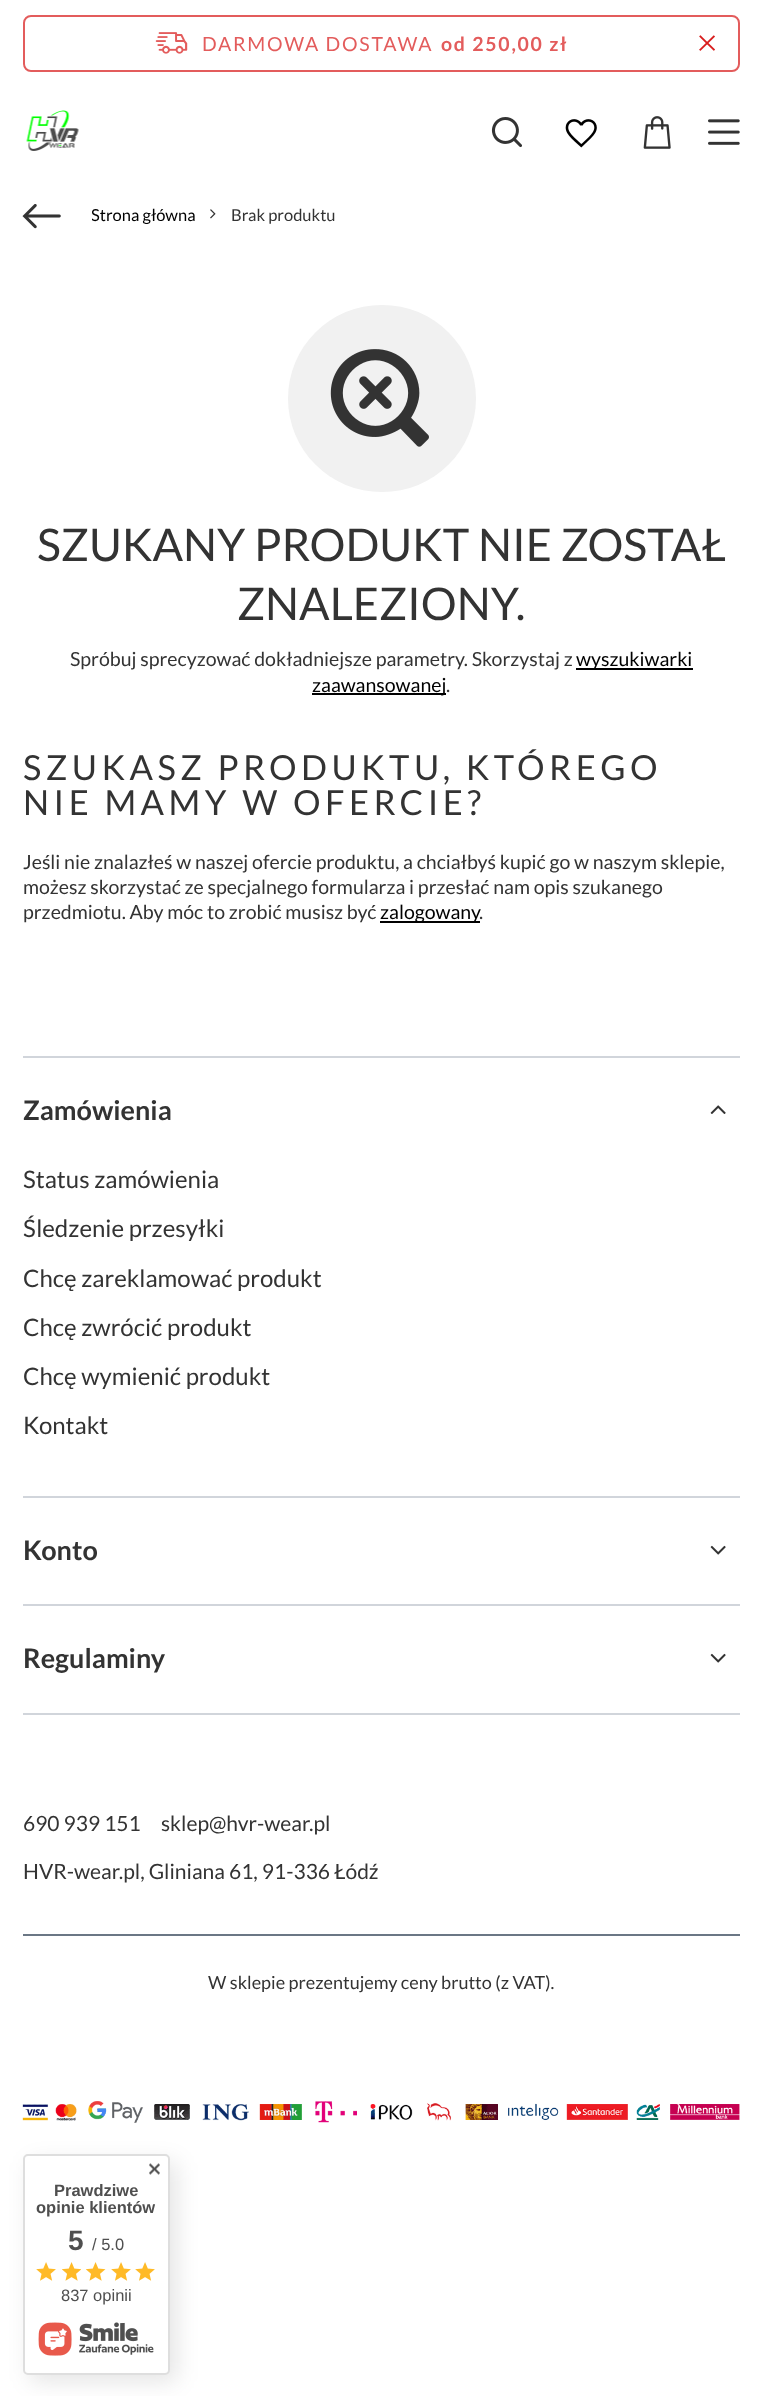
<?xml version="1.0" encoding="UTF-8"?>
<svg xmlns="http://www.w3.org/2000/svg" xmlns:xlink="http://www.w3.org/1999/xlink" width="761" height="2396">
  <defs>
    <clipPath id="clip1"><rect x="92" y="192" width="244" height="45" rx="8" /></clipPath>
  </defs>
  <rect width="100%" height="100%" fill="#ffffff" />
  <rect x="24" y="16" width="715" height="55" rx="7" fill="none" stroke="#e35c5c" stroke-width="2" />
  <image x="155" y="32" width="33" height="22" xlink:href="image1.png" />
  <image x="699" y="35" width="16" height="16" xlink:href="image2.png" />
  <image x="26" y="110" width="53" height="41" xlink:href="image3.png" />
  <image x="491" y="117" width="31" height="31" xlink:href="image4.png" />
  <image x="565" y="119" width="32" height="29" xlink:href="image5.png" />
  <image x="643" y="116" width="28" height="33" xlink:href="image6.png" />
  <image x="708" y="119" width="32" height="26" xlink:href="image7.png" />
  <image x="22" y="204" width="39" height="25" xlink:href="image8.png" />
  <image x="210" y="209" width="6" height="10" xlink:href="image9.png" />
  <rect x="288" y="305" width="188" height="187" rx="93.5" fill="#f1f1f1" />
  <image x="330" y="349" width="99" height="98" xlink:href="image10.png" />
  <rect x="576" y="668" width="117" height="2" fill="#000000" />
  <rect x="312" y="693" width="134" height="2" fill="#000000" />
  <rect x="380" y="921" width="100" height="2" fill="#000000" />
  <rect x="23" y="1056" width="717" height="2" fill="#d1d5db" />
  <rect x="23" y="1496" width="717" height="2" fill="#d1d5db" />
  <image x="710" y="1105" width="16" height="9" xlink:href="image11.png" />
  <rect x="23" y="1604" width="717" height="2" fill="#d1d5db" />
  <image x="710" y="1545" width="16" height="10" xlink:href="image12.png" />
  <rect x="23" y="1713" width="717" height="2" fill="#d1d5db" />
  <image x="710" y="1653" width="16" height="10" xlink:href="image12.png" />
  <rect x="23" y="1934" width="717" height="2" fill="#6b7785" />
  <image x="22" y="2101" width="718" height="22" xlink:href="image13.png" />
  <rect x="30" y="2162" width="147" height="220" rx="5" fill="#000000" fill-opacity="0.1" filter="blur(11px)" />
  <rect x="24" y="2155" width="145" height="219" rx="4" fill="#ffffff" stroke="#dedede" stroke-width="2" />
  <image x="149" y="2163" width="11" height="12" xlink:href="image14.png" />
  <image x="36" y="2262" width="20" height="19" xlink:href="image15.png" />
  <image x="62" y="2262" width="19" height="19" xlink:href="image16.png" />
  <image x="86" y="2262" width="20" height="19" xlink:href="image17.png" />
  <image x="111" y="2262" width="20" height="19" xlink:href="image15.png" />
  <image x="135" y="2262" width="20" height="19" xlink:href="image15.png" />
  <image x="38" y="2322" width="116" height="34" xlink:href="image18.png" />
  <text x="202" y="51" style="font-family: Lato; font-size: 19.5px; letter-spacing: 1.75px; fill: #e35c5c">DARMOWA DOSTAWA</text>
  <text x="441" y="51" style="font-family: Lato; font-size: 19.5px; font-weight: bold; letter-spacing: 1.75px; fill: #e35c5c">od 250,00 zł</text>
  <g clip-path="url(#clip1)">
    <text x="91" y="221" style="font-family: Lato; font-size: 16.5px; fill: #000000">Strona główna</text>
  </g>
  <text x="231" y="221" style="font-family: Lato; font-size: 16.5px; fill: #333333">Brak produktu</text>
  <text x="37" y="561" style="font-family: Lato; font-size: 45px; fill: #333333">SZUKANY PRODUKT NIE ZOSTAŁ</text>
  <text x="237" y="620" style="font-family: Lato; font-size: 45px; fill: #333333">ZNALEZIONY.</text>
  <text x="70" y="666" style="font-family: Lato; font-size: 19.5px; fill: #333333">Spróbuj sprecyzować dokładniejsze parametry. Skorzystaj z</text>
  <text x="576" y="666" style="font-family: Lato; font-size: 19.5px; fill: #000000">wyszukiwarki</text>
  <text x="312" y="692" style="font-family: Lato; font-size: 19.5px; fill: #000000">zaawansowanej</text>
  <text x="446" y="692" style="font-family: Lato; font-size: 19.5px; fill: #333333">.</text>
  <text x="23" y="780" style="font-family: Lato; font-size: 34.5px; letter-spacing: 4.5px; fill: #333333">SZUKASZ PRODUKTU, KTÓREGO</text>
  <text x="23" y="815" style="font-family: Lato; font-size: 34.5px; letter-spacing: 4.5px; fill: #333333">NIE MAMY W OFERCIE?</text>
  <text x="23" y="869" style="font-family: Lato; font-size: 19.5px; fill: #333333">Jeśli nie znalazłeś w naszej ofercie produktu, a chciałbyś kupić go w naszym sklepie,</text>
  <text x="23" y="894" style="font-family: Lato; font-size: 19.5px; fill: #333333">możesz skorzystać ze specjalnego formularza i przesłać nam opis szukanego</text>
  <text x="23" y="919" style="font-family: Lato; font-size: 19.5px; fill: #333333">przedmiotu. Aby móc to zrobić musisz być</text>
  <text x="380" y="919" style="font-family: Lato; font-size: 19.5px; fill: #000000">zalogowany</text>
  <text x="479" y="919" style="font-family: Lato; font-size: 19.5px; fill: #333333">.</text>
  <text x="23" y="1120" style="font-family: Lato; font-size: 27px; font-weight: bold; fill: #333333">Zamówienia</text>
  <text x="23" y="1188" style="font-family: Lato; font-size: 24px; fill: #333333">Status zamówienia</text>
  <text x="23" y="1237" style="font-family: Lato; font-size: 24px; fill: #333333">Śledzenie przesyłki</text>
  <text x="23" y="1287" style="font-family: Lato; font-size: 24px; fill: #333333">Chcę zareklamować produkt</text>
  <text x="23" y="1336" style="font-family: Lato; font-size: 24px; fill: #333333">Chcę zwrócić produkt</text>
  <text x="23" y="1385" style="font-family: Lato; font-size: 24px; fill: #333333">Chcę wymienić produkt</text>
  <text x="23" y="1434" style="font-family: Lato; font-size: 24px; fill: #333333">Kontakt</text>
  <text x="23" y="1560" style="font-family: Lato; font-size: 27px; font-weight: bold; fill: #333333">Konto</text>
  <text x="23" y="1668" style="font-family: Lato; font-size: 27px; font-weight: bold; fill: #333333">Regulaminy</text>
  <text x="23" y="1831" style="font-family: Lato; font-size: 21px; fill: #333333">690 939 151</text>
  <text x="161" y="1831" style="font-family: Lato; font-size: 21px; fill: #333333">sklep@hvr-wear.pl</text>
  <text x="23" y="1879" style="font-family: Lato; font-size: 21px; fill: #333333">HVR-wear.pl, Gliniana 61, 91-336 Łódź</text>
  <text x="208" y="1989" style="font-family: Lato; font-size: 18px; fill: #333333">W sklepie prezentujemy ceny brutto (z VAT).</text>
  <text x="54" y="2196" style="font-family: Liberation Sans; font-size: 16.5px; font-weight: bold; fill: #4f4f4f">Prawdziwe</text>
  <text x="36" y="2213" style="font-family: Liberation Sans; font-size: 16.5px; font-weight: bold; fill: #4f4f4f">opinie klientów</text>
  <text x="68" y="2250" style="font-family: Liberation Sans; font-size: 28px; font-weight: bold; fill: #4f4f4f">5</text>
  <text x="92" y="2250" style="font-family: Liberation Sans; font-size: 16.5px; fill: #4f4f4f">/ 5.0</text>
  <text x="61" y="2301" style="font-family: Liberation Sans; font-size: 16.5px; fill: #4f4f4f">837 opinii</text>
</svg>
